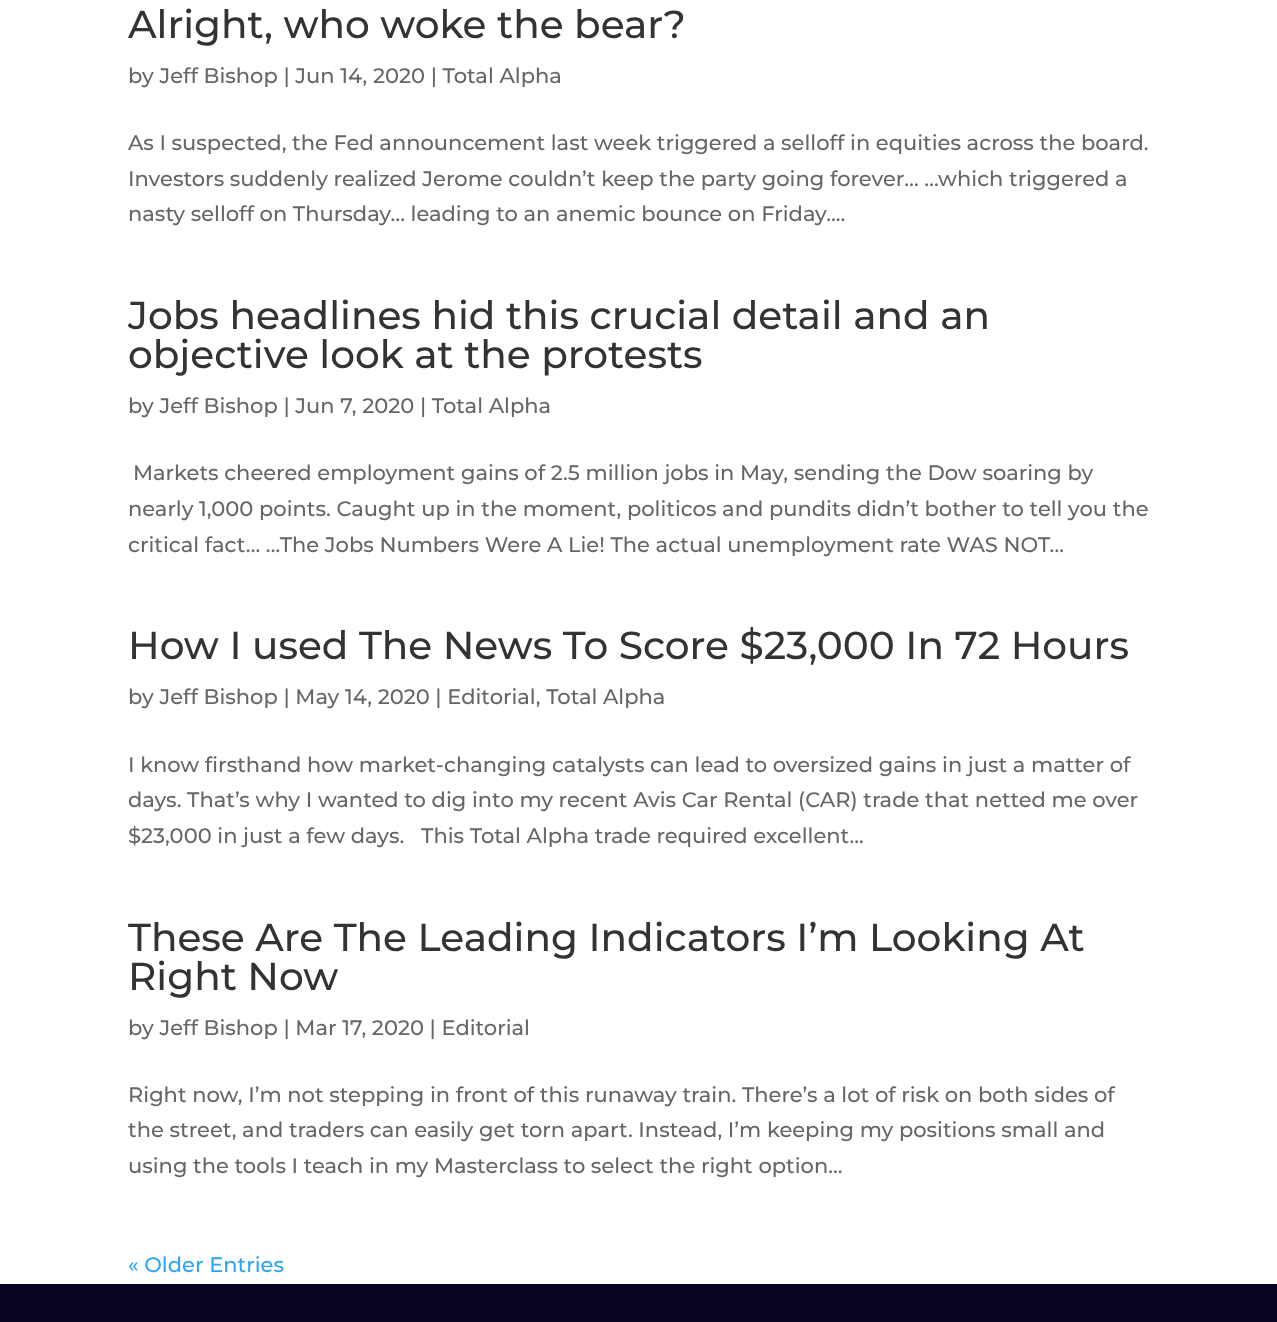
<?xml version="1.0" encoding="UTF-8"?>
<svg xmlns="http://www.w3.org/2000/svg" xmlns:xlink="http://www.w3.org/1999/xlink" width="1277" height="1322">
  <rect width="100%" height="100%" fill="#ffffff" />
  <rect y="1284" width="1277" height="38" fill="#070320" />
  <text x="128" y="38" style="font-family: Montserrat; font-size: 39px; font-weight: 500; fill: #333333">Alright, who woke the bear?</text>
  <text x="128" y="83" style="font-family: Montserrat; font-size: 21px; font-weight: 500; fill: #666666">by Jeff Bishop | Jun 14, 2020 | Total Alpha</text>
  <text x="128" y="150" style="font-family: Montserrat; font-size: 21px; font-weight: 500; fill: #666666">As I suspected, the Fed announcement last week triggered a selloff in equities across the board.</text>
  <text x="128" y="186" style="font-family: Montserrat; font-size: 21px; font-weight: 500; fill: #666666">Investors suddenly realized Jerome couldn’t keep the party going forever… …which triggered a</text>
  <text x="128" y="221" style="font-family: Montserrat; font-size: 21px; font-weight: 500; fill: #666666">nasty selloff on Thursday… leading to an anemic bounce on Friday....</text>
  <text x="128" y="329" style="font-family: Montserrat; font-size: 39px; font-weight: 500; fill: #333333">Jobs headlines hid this crucial detail and an</text>
  <text x="128" y="368" style="font-family: Montserrat; font-size: 39px; font-weight: 500; fill: #333333">objective look at the protests</text>
  <text x="128" y="413" style="font-family: Montserrat; font-size: 21px; font-weight: 500; fill: #666666">by Jeff Bishop | Jun 7, 2020 | Total Alpha</text>
  <text x="133" y="480" style="font-family: Montserrat; font-size: 21px; font-weight: 500; fill: #666666">Markets cheered employment gains of 2.5 million jobs in May, sending the Dow soaring by</text>
  <text x="128" y="516" style="font-family: Montserrat; font-size: 21px; font-weight: 500; fill: #666666">nearly 1,000 points. Caught up in the moment, politicos and pundits didn’t bother to tell you the</text>
  <text x="128" y="552" style="font-family: Montserrat; font-size: 21px; font-weight: 500; fill: #666666">critical fact… …The Jobs Numbers Were A Lie! The actual unemployment rate WAS NOT...</text>
  <text x="128" y="659" style="font-family: Montserrat; font-size: 39px; font-weight: 500; fill: #333333">How I used The News To Score $23,000 In 72 Hours</text>
  <text x="128" y="704" style="font-family: Montserrat; font-size: 21px; font-weight: 500; fill: #666666">by Jeff Bishop | May 14, 2020 | Editorial, Total Alpha</text>
  <text x="128" y="772" style="font-family: Montserrat; font-size: 21px; font-weight: 500; fill: #666666">I know firsthand how market-changing catalysts can lead to oversized gains in just a matter of</text>
  <text x="128" y="807" style="font-family: Montserrat; font-size: 21px; font-weight: 500; fill: #666666">days. That’s why I wanted to dig into my recent Avis Car Rental (CAR) trade that netted me over</text>
  <text x="128" y="843" style="font-family: Montserrat; font-size: 21px; font-weight: 500; fill: #666666" xml:space="preserve">$23,000 in just a few days.   This Total Alpha trade required excellent...</text>
  <text x="128" y="951" style="font-family: Montserrat; font-size: 39px; font-weight: 500; fill: #333333">These Are The Leading Indicators I’m Looking At</text>
  <text x="128" y="990" style="font-family: Montserrat; font-size: 39px; font-weight: 500; fill: #333333">Right Now</text>
  <text x="128" y="1035" style="font-family: Montserrat; font-size: 21px; font-weight: 500; fill: #666666">by Jeff Bishop | Mar 17, 2020 | Editorial</text>
  <text x="128" y="1102" style="font-family: Montserrat; font-size: 21px; font-weight: 500; fill: #666666">Right now, I’m not stepping in front of this runaway train. There’s a lot of risk on both sides of</text>
  <text x="128" y="1137" style="font-family: Montserrat; font-size: 21px; font-weight: 500; fill: #666666">the street, and traders can easily get torn apart. Instead, I’m keeping my positions small and</text>
  <text x="128" y="1173" style="font-family: Montserrat; font-size: 21px; font-weight: 500; fill: #666666">using the tools I teach in my Masterclass to select the right option...</text>
  <text x="128" y="1272" style="font-family: Montserrat; font-size: 21px; font-weight: 500; fill: #2ea3f2">« Older Entries</text>
</svg>
